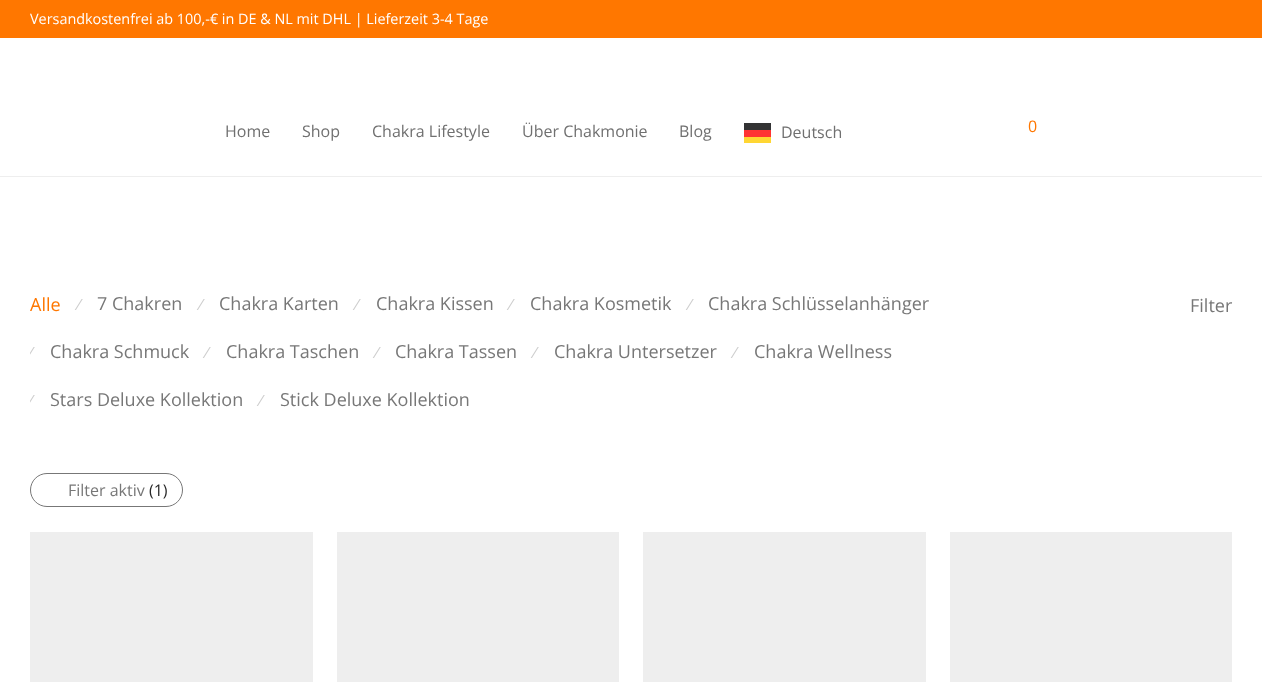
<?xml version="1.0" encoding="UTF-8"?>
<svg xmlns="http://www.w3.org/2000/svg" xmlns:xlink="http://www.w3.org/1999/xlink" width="1262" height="682">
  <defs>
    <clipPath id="clip1"><rect x="30" y="288" width="962" height="129" /></clipPath>
  </defs>
  <rect width="100%" height="100%" fill="#ffffff" />
  <rect width="1262" height="38" fill="#ff7700" />
  <rect y="176" width="1262" height="1" fill="#eeeeee" />
  <rect x="744" y="137" width="27" height="6" fill="#ffd633" />
  <rect x="744" y="123" width="27" height="7" fill="#333334" />
  <rect x="744" y="130" width="27" height="7" fill="#ff3333" />
  <rect x="30.5" y="473.5" width="152" height="33" rx="16.5" fill="none" stroke="#777777" />
  <rect x="30" y="532" width="283" height="150" fill="#eeeeee" />
  <rect x="337" y="532" width="282" height="150" fill="#eeeeee" />
  <rect x="643" y="532" width="283" height="150" fill="#eeeeee" />
  <rect x="950" y="532" width="282" height="150" fill="#eeeeee" />
  <text x="30" y="24" style="font-family: Open Sans; font-size: 14.4px; fill: #ffffff">Versandkostenfrei ab 100,-€ in DE &amp; NL mit DHL | Lieferzeit 3-4 Tage</text>
  <text x="225" y="137" style="font-family: Open Sans; font-size: 16px; fill: #707070">Home</text>
  <text x="302" y="137" style="font-family: Open Sans; font-size: 16px; fill: #707070">Shop</text>
  <text x="372" y="137" style="font-family: Open Sans; font-size: 16px; fill: #707070">Chakra Lifestyle</text>
  <text x="522" y="137" style="font-family: Open Sans; font-size: 16px; fill: #707070">Über Chakmonie</text>
  <text x="679" y="137" style="font-family: Open Sans; font-size: 16px; fill: #707070">Blog</text>
  <text x="781" y="138" style="font-family: Open Sans; font-size: 16px; fill: #707070">Deutsch</text>
  <text x="1028" y="132" style="font-family: Open Sans; font-size: 16px; fill: #ff7700">0</text>
  <text x="30" y="311" style="font-family: Open Sans; font-size: 18px; fill: #ff7700">Alle</text>
  <text x="78" y="310" style="font-family: Liberation Sans; font-size: 16px; fill: #cccccc">⁄</text>
  <text x="97" y="310" style="font-family: Open Sans; font-size: 18px; fill: #777777">7 Chakren</text>
  <text x="200" y="310" style="font-family: Liberation Sans; font-size: 16px; fill: #cccccc">⁄</text>
  <text x="219" y="310" style="font-family: Open Sans; font-size: 18px; fill: #777777">Chakra Karten</text>
  <text x="356" y="310" style="font-family: Liberation Sans; font-size: 16px; fill: #cccccc">⁄</text>
  <text x="376" y="310" style="font-family: Open Sans; font-size: 18px; fill: #777777">Chakra Kissen</text>
  <text x="510" y="310" style="font-family: Liberation Sans; font-size: 16px; fill: #cccccc">⁄</text>
  <text x="530" y="310" style="font-family: Open Sans; font-size: 18px; fill: #777777">Chakra Kosmetik</text>
  <text x="689" y="310" style="font-family: Liberation Sans; font-size: 16px; fill: #cccccc">⁄</text>
  <text x="708" y="310" style="font-family: Open Sans; font-size: 18px; fill: #777777">Chakra Schlüsselanhänger</text>
  <g clip-path="url(#clip1)">
    <text x="30" y="358" style="font-family: Liberation Sans; font-size: 16px; fill: #cccccc">⁄</text>
  </g>
  <text x="50" y="358" style="font-family: Open Sans; font-size: 18px; fill: #777777">Chakra Schmuck</text>
  <text x="206" y="358" style="font-family: Liberation Sans; font-size: 16px; fill: #cccccc">⁄</text>
  <text x="226" y="358" style="font-family: Open Sans; font-size: 18px; fill: #777777">Chakra Taschen</text>
  <text x="376" y="358" style="font-family: Liberation Sans; font-size: 16px; fill: #cccccc">⁄</text>
  <text x="395" y="358" style="font-family: Open Sans; font-size: 18px; fill: #777777">Chakra Tassen</text>
  <text x="534" y="358" style="font-family: Liberation Sans; font-size: 16px; fill: #cccccc">⁄</text>
  <text x="554" y="358" style="font-family: Open Sans; font-size: 18px; fill: #777777">Chakra Untersetzer</text>
  <text x="734" y="358" style="font-family: Liberation Sans; font-size: 16px; fill: #cccccc">⁄</text>
  <text x="754" y="358" style="font-family: Open Sans; font-size: 18px; fill: #777777">Chakra Wellness</text>
  <g clip-path="url(#clip1)">
    <text x="30" y="406" style="font-family: Liberation Sans; font-size: 16px; fill: #cccccc">⁄</text>
  </g>
  <text x="50" y="406" style="font-family: Open Sans; font-size: 18px; fill: #777777">Stars Deluxe Kollektion</text>
  <text x="260" y="406" style="font-family: Liberation Sans; font-size: 16px; fill: #cccccc">⁄</text>
  <text x="280" y="406" style="font-family: Open Sans; font-size: 18px; fill: #777777">Stick Deluxe Kollektion</text>
  <text x="1190" y="312" style="font-family: Open Sans; font-size: 18px; fill: #777777">Filter</text>
  <text x="68" y="496" style="font-family: Open Sans; font-size: 16px; fill: #777777">Filter aktiv</text>
  <text x="149" y="496" style="font-family: Open Sans; font-size: 16px; fill: #282828">(1)</text>
</svg>
